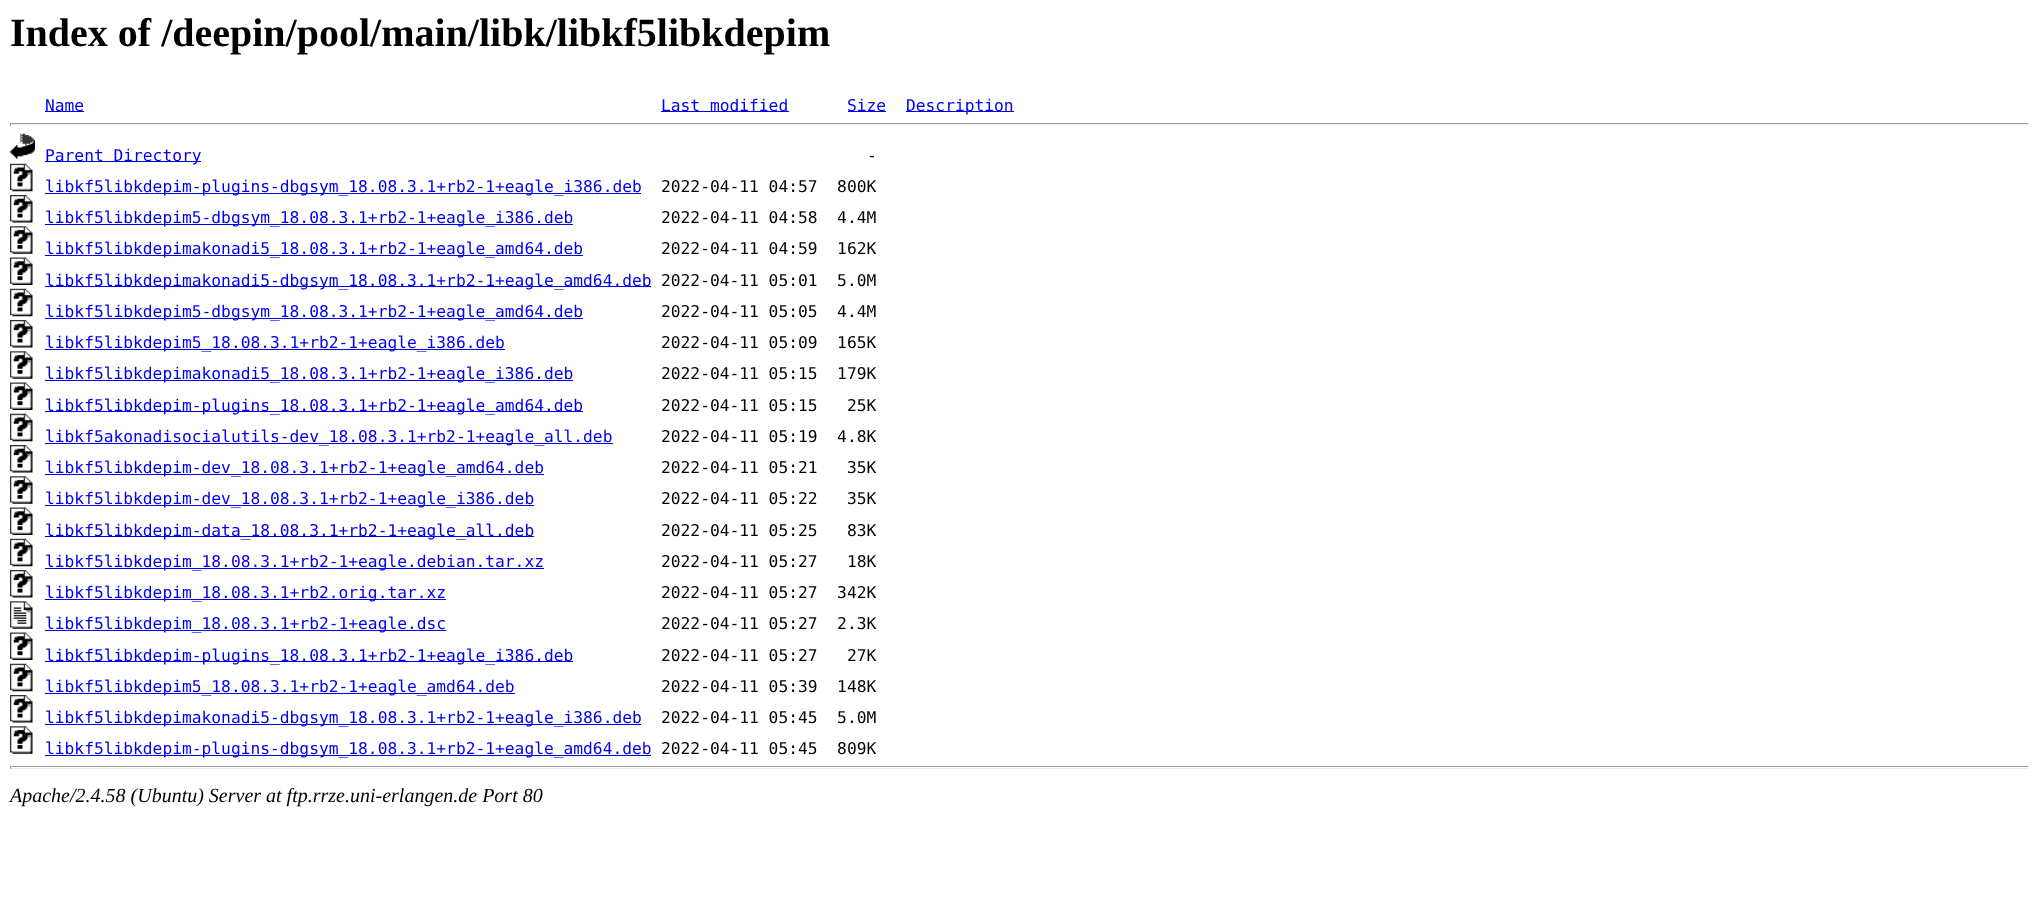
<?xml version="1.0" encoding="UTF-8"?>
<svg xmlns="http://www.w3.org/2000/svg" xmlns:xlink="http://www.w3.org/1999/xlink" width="2038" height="915">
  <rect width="100%" height="100%" fill="#ffffff" />
  <rect x="45" y="111" width="39" height="1" fill="#0000ee" />
  <rect x="661" y="111" width="128" height="1" fill="#0000ee" />
  <rect x="848" y="111" width="38" height="1" fill="#0000ee" />
  <rect x="906" y="111" width="108" height="1" fill="#0000ee" />
  <rect x="10" y="123" width="2019" height="1" fill="#9f9f9f" />
  <rect x="2028" y="123" width="1" height="3" fill="#eeeeee" />
  <rect x="10" y="124" width="2019" height="1" fill="#eeeeee" />
  <rect x="10" y="123" width="1" height="3" fill="#9f9f9f" />
  <image x="10" y="133" width="25" height="26" xlink:href="image1.png" />
  <rect x="45" y="161" width="156" height="1" fill="#0000ee" />
  <image x="10" y="163" width="23" height="29" xlink:href="image2.png" />
  <rect x="45" y="193" width="596" height="1" fill="#0000ee" />
  <image x="10" y="195" width="23" height="28" xlink:href="image3.png" />
  <rect x="45" y="224" width="528" height="1" fill="#0000ee" />
  <image x="10" y="226" width="23" height="28" xlink:href="image4.png" />
  <rect x="45" y="255" width="538" height="1" fill="#0000ee" />
  <image x="10" y="257" width="23" height="28" xlink:href="image5.png" />
  <rect x="45" y="286" width="606" height="1" fill="#0000ee" />
  <image x="10" y="288" width="23" height="29" xlink:href="image6.png" />
  <rect x="45" y="318" width="538" height="1" fill="#0000ee" />
  <image x="10" y="320" width="23" height="28" xlink:href="image3.png" />
  <rect x="45" y="349" width="460" height="1" fill="#0000ee" />
  <image x="10" y="351" width="23" height="28" xlink:href="image4.png" />
  <rect x="45" y="380" width="528" height="1" fill="#0000ee" />
  <image x="10" y="382" width="23" height="28" xlink:href="image5.png" />
  <rect x="45" y="411" width="538" height="1" fill="#0000ee" />
  <image x="10" y="413" width="23" height="29" xlink:href="image2.png" />
  <rect x="45" y="443" width="568" height="1" fill="#0000ee" />
  <image x="10" y="445" width="23" height="28" xlink:href="image3.png" />
  <rect x="45" y="474" width="499" height="1" fill="#0000ee" />
  <image x="10" y="476" width="23" height="28" xlink:href="image4.png" />
  <rect x="45" y="505" width="489" height="1" fill="#0000ee" />
  <image x="10" y="507" width="23" height="28" xlink:href="image5.png" />
  <rect x="45" y="536" width="489" height="1" fill="#0000ee" />
  <image x="10" y="538" width="23" height="29" xlink:href="image2.png" />
  <rect x="45" y="568" width="499" height="1" fill="#0000ee" />
  <image x="10" y="570" width="23" height="28" xlink:href="image7.png" />
  <rect x="45" y="599" width="401" height="1" fill="#0000ee" />
  <image x="10" y="601" width="23" height="28" xlink:href="image8.png" />
  <rect x="45" y="630" width="401" height="1" fill="#0000ee" />
  <image x="10" y="632" width="23" height="28" xlink:href="image5.png" />
  <rect x="45" y="661" width="528" height="1" fill="#0000ee" />
  <image x="10" y="663" width="23" height="29" xlink:href="image2.png" />
  <rect x="45" y="693" width="470" height="1" fill="#0000ee" />
  <image x="10" y="695" width="23" height="28" xlink:href="image3.png" />
  <rect x="45" y="724" width="596" height="1" fill="#0000ee" />
  <image x="10" y="726" width="23" height="28" xlink:href="image4.png" />
  <rect x="45" y="755" width="606" height="1" fill="#0000ee" />
  <rect x="10" y="766" width="2019" height="1" fill="#9f9f9f" />
  <rect x="2028" y="766" width="1" height="3" fill="#eeeeee" />
  <rect x="10" y="768" width="2019" height="1" fill="#eeeeee" />
  <rect x="10" y="766" width="1" height="3" fill="#9f9f9f" />
  <text x="10" y="46" style="font-family: Liberation Serif; font-size: 40px; font-weight: bold; fill: #000000">Index of /deepin/pool/main/libk/libkf5libkdepim</text>
  <text x="45" y="111" style="font-family: DejaVu Sans Mono; font-size: 16.25px; fill: #0000ee">Name</text>
  <text x="661" y="111" style="font-family: DejaVu Sans Mono; font-size: 16.25px; fill: #0000ee">Last modified</text>
  <text x="847" y="111" style="font-family: DejaVu Sans Mono; font-size: 16.25px; fill: #0000ee">Size</text>
  <text x="906" y="111" style="font-family: DejaVu Sans Mono; font-size: 16.25px; fill: #0000ee">Description</text>
  <text x="45" y="161" style="font-family: DejaVu Sans Mono; font-size: 16.25px; fill: #0000ee">Parent Directory</text>
  <text x="867" y="161" style="font-family: DejaVu Sans Mono; font-size: 16.25px; fill: #000000">-</text>
  <text x="45" y="192" style="font-family: DejaVu Sans Mono; font-size: 16.25px; fill: #0000ee">libkf5libkdepim-plugins-dbgsym_18.08.3.1+rb2-1+eagle_i386.deb</text>
  <text x="661" y="192" style="font-family: DejaVu Sans Mono; font-size: 16.25px; fill: #000000" xml:space="preserve">2022-04-11 04:57  800K</text>
  <text x="45" y="223" style="font-family: DejaVu Sans Mono; font-size: 16.25px; fill: #0000ee">libkf5libkdepim5-dbgsym_18.08.3.1+rb2-1+eagle_i386.deb</text>
  <text x="661" y="223" style="font-family: DejaVu Sans Mono; font-size: 16.25px; fill: #000000" xml:space="preserve">2022-04-11 04:58  4.4M</text>
  <text x="45" y="254" style="font-family: DejaVu Sans Mono; font-size: 16.25px; fill: #0000ee">libkf5libkdepimakonadi5_18.08.3.1+rb2-1+eagle_amd64.deb</text>
  <text x="661" y="254" style="font-family: DejaVu Sans Mono; font-size: 16.25px; fill: #000000" xml:space="preserve">2022-04-11 04:59  162K</text>
  <text x="45" y="286" style="font-family: DejaVu Sans Mono; font-size: 16.25px; fill: #0000ee">libkf5libkdepimakonadi5-dbgsym_18.08.3.1+rb2-1+eagle_amd64.deb</text>
  <text x="661" y="286" style="font-family: DejaVu Sans Mono; font-size: 16.25px; fill: #000000" xml:space="preserve">2022-04-11 05:01  5.0M</text>
  <text x="45" y="317" style="font-family: DejaVu Sans Mono; font-size: 16.25px; fill: #0000ee">libkf5libkdepim5-dbgsym_18.08.3.1+rb2-1+eagle_amd64.deb</text>
  <text x="661" y="317" style="font-family: DejaVu Sans Mono; font-size: 16.25px; fill: #000000" xml:space="preserve">2022-04-11 05:05  4.4M</text>
  <text x="45" y="348" style="font-family: DejaVu Sans Mono; font-size: 16.25px; fill: #0000ee">libkf5libkdepim5_18.08.3.1+rb2-1+eagle_i386.deb</text>
  <text x="661" y="348" style="font-family: DejaVu Sans Mono; font-size: 16.25px; fill: #000000" xml:space="preserve">2022-04-11 05:09  165K</text>
  <text x="45" y="379" style="font-family: DejaVu Sans Mono; font-size: 16.25px; fill: #0000ee">libkf5libkdepimakonadi5_18.08.3.1+rb2-1+eagle_i386.deb</text>
  <text x="661" y="379" style="font-family: DejaVu Sans Mono; font-size: 16.25px; fill: #000000" xml:space="preserve">2022-04-11 05:15  179K</text>
  <text x="45" y="411" style="font-family: DejaVu Sans Mono; font-size: 16.25px; fill: #0000ee">libkf5libkdepim-plugins_18.08.3.1+rb2-1+eagle_amd64.deb</text>
  <text x="661" y="411" style="font-family: DejaVu Sans Mono; font-size: 16.25px; fill: #000000" xml:space="preserve">2022-04-11 05:15   25K</text>
  <text x="45" y="442" style="font-family: DejaVu Sans Mono; font-size: 16.25px; fill: #0000ee">libkf5akonadisocialutils-dev_18.08.3.1+rb2-1+eagle_all.deb</text>
  <text x="661" y="442" style="font-family: DejaVu Sans Mono; font-size: 16.25px; fill: #000000" xml:space="preserve">2022-04-11 05:19  4.8K</text>
  <text x="45" y="473" style="font-family: DejaVu Sans Mono; font-size: 16.25px; fill: #0000ee">libkf5libkdepim-dev_18.08.3.1+rb2-1+eagle_amd64.deb</text>
  <text x="661" y="473" style="font-family: DejaVu Sans Mono; font-size: 16.25px; fill: #000000" xml:space="preserve">2022-04-11 05:21   35K</text>
  <text x="45" y="504" style="font-family: DejaVu Sans Mono; font-size: 16.25px; fill: #0000ee">libkf5libkdepim-dev_18.08.3.1+rb2-1+eagle_i386.deb</text>
  <text x="661" y="504" style="font-family: DejaVu Sans Mono; font-size: 16.25px; fill: #000000" xml:space="preserve">2022-04-11 05:22   35K</text>
  <text x="45" y="536" style="font-family: DejaVu Sans Mono; font-size: 16.25px; fill: #0000ee">libkf5libkdepim-data_18.08.3.1+rb2-1+eagle_all.deb</text>
  <text x="661" y="536" style="font-family: DejaVu Sans Mono; font-size: 16.25px; fill: #000000" xml:space="preserve">2022-04-11 05:25   83K</text>
  <text x="45" y="567" style="font-family: DejaVu Sans Mono; font-size: 16.25px; fill: #0000ee">libkf5libkdepim_18.08.3.1+rb2-1+eagle.debian.tar.xz</text>
  <text x="661" y="567" style="font-family: DejaVu Sans Mono; font-size: 16.25px; fill: #000000" xml:space="preserve">2022-04-11 05:27   18K</text>
  <text x="45" y="598" style="font-family: DejaVu Sans Mono; font-size: 16.25px; fill: #0000ee">libkf5libkdepim_18.08.3.1+rb2.orig.tar.xz</text>
  <text x="661" y="598" style="font-family: DejaVu Sans Mono; font-size: 16.25px; fill: #000000" xml:space="preserve">2022-04-11 05:27  342K</text>
  <text x="45" y="629" style="font-family: DejaVu Sans Mono; font-size: 16.25px; fill: #0000ee">libkf5libkdepim_18.08.3.1+rb2-1+eagle.dsc</text>
  <text x="661" y="629" style="font-family: DejaVu Sans Mono; font-size: 16.25px; fill: #000000" xml:space="preserve">2022-04-11 05:27  2.3K</text>
  <text x="45" y="661" style="font-family: DejaVu Sans Mono; font-size: 16.25px; fill: #0000ee">libkf5libkdepim-plugins_18.08.3.1+rb2-1+eagle_i386.deb</text>
  <text x="661" y="661" style="font-family: DejaVu Sans Mono; font-size: 16.25px; fill: #000000" xml:space="preserve">2022-04-11 05:27   27K</text>
  <text x="45" y="692" style="font-family: DejaVu Sans Mono; font-size: 16.25px; fill: #0000ee">libkf5libkdepim5_18.08.3.1+rb2-1+eagle_amd64.deb</text>
  <text x="661" y="692" style="font-family: DejaVu Sans Mono; font-size: 16.25px; fill: #000000" xml:space="preserve">2022-04-11 05:39  148K</text>
  <text x="45" y="723" style="font-family: DejaVu Sans Mono; font-size: 16.25px; fill: #0000ee">libkf5libkdepimakonadi5-dbgsym_18.08.3.1+rb2-1+eagle_i386.deb</text>
  <text x="661" y="723" style="font-family: DejaVu Sans Mono; font-size: 16.25px; fill: #000000" xml:space="preserve">2022-04-11 05:45  5.0M</text>
  <text x="45" y="754" style="font-family: DejaVu Sans Mono; font-size: 16.25px; fill: #0000ee">libkf5libkdepim-plugins-dbgsym_18.08.3.1+rb2-1+eagle_amd64.deb</text>
  <text x="661" y="754" style="font-family: DejaVu Sans Mono; font-size: 16.25px; fill: #000000" xml:space="preserve">2022-04-11 05:45  809K</text>
  <text x="10" y="802" style="font-family: Liberation Serif; font-size: 20px; font-style: italic; fill: #000000">Apache/2.4.58 (Ubuntu) Server at ftp.rrze.uni-erlangen.de Port 80</text>
</svg>
